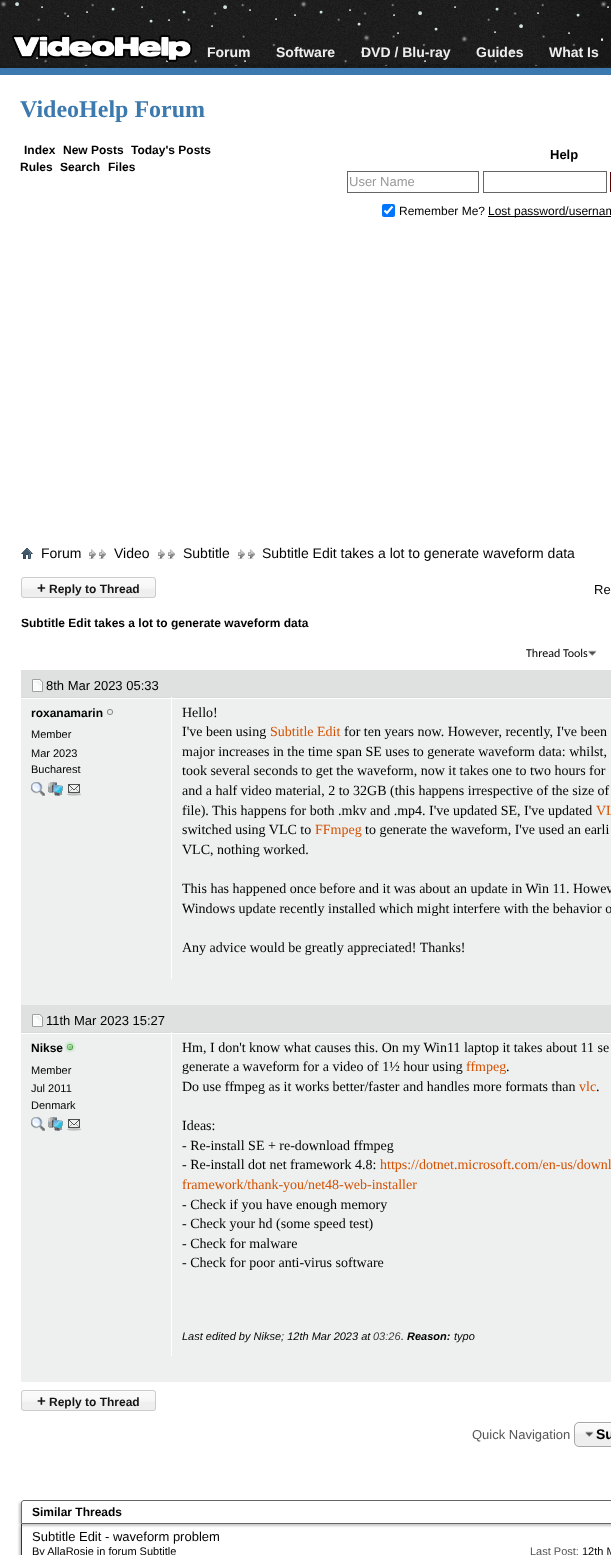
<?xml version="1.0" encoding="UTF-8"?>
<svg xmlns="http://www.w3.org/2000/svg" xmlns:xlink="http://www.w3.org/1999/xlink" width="611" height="1555">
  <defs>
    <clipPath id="clip1"><path d="M 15 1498 h 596 v 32 h -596 z m 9 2 h 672 c 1.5 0 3 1.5 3 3 v 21 h -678 v -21 c 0 -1.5 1.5 -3 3 -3 z" clip-rule="evenodd" /></clipPath>
    <clipPath id="clip2"><rect x="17" y="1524" width="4" height="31" /></clipPath>
  </defs>
  <rect width="100%" height="100%" fill="#222222" />
  <image x="0" y="0" width="611" height="68" xlink:href="image2.png" />
  <image x="0" y="1" width="607" height="65" xlink:href="image1.png" />
  <rect y="68" width="611" height="7" fill="#3c79ae" />
  <image x="12" y="34" width="180" height="28" xlink:href="image3.png" />
  <rect y="75" width="611" height="1480" fill="#ffffff" />
  <rect x="347.5" y="171.5" width="131" height="21" fill="none" stroke="#666666" />
  <rect x="483.5" y="171.5" width="123" height="21" fill="none" stroke="#666666" />
  <rect x="610.5" y="172.5" width="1" height="19" fill="none" stroke="#540000" />
  <rect x="382" y="204" width="13" height="13" rx="2" fill="#0075ff" />
  <path d="M 384.5 210.5 l 2.5 2.5 l 5.5 -6.5" fill="none" stroke="#ffffff" stroke-width="2.1" />
  <rect x="488" y="216" width="123" height="1" fill="#000000" />
  <image x="21" y="548" width="12" height="11" xlink:href="image4.png" />
  <image x="99" y="549" width="7" height="10" xlink:href="image5.png" />
  <image x="89" y="549" width="7" height="10" xlink:href="image5.png" />
  <image x="168" y="549" width="7" height="10" xlink:href="image5.png" />
  <image x="158" y="549" width="7" height="10" xlink:href="image5.png" />
  <image x="248" y="549" width="7" height="10" xlink:href="image5.png" />
  <image x="238" y="549" width="7" height="10" xlink:href="image5.png" />
  <rect x="21" y="577" width="135" height="21" rx="3" fill="#efefef" />
  <image x="21" y="578" width="135" height="11" xlink:href="image6.png" />
  <rect x="21.5" y="577.5" width="134" height="20" rx="2.5" fill="none" stroke="#cccccc" />
  <image x="588" y="650" width="9" height="6" xlink:href="image7.png" />
  <rect x="21" y="670" width="590" height="27" fill="#dfe1e1" />
  <image x="32" y="679" width="11" height="13" xlink:href="image8.png" />
  <rect x="21" y="812" width="590" height="193" fill="#eef0f0" />
  <rect x="21" y="699" width="150" height="113" fill="#eef0f0" />
  <image x="21" y="697" width="150" height="2" xlink:href="image9.png" />
  <image x="107" y="709" width="6" height="6" xlink:href="image10.png" />
  <image x="31" y="782" width="14" height="14" xlink:href="image11.png" />
  <image x="48" y="782" width="15" height="14" xlink:href="image12.png" />
  <image x="67" y="784" width="14" height="12" xlink:href="image13.png" />
  <rect x="172" y="699" width="439" height="113" fill="#eef0f0" />
  <image x="172" y="697" width="439" height="2" xlink:href="image14.png" />
  <rect x="171" y="812" width="1" height="167" fill="#ffffff" />
  <rect x="21" y="1005" width="590" height="27" fill="#dfe1e1" />
  <image x="32" y="1014" width="11" height="13" xlink:href="image8.png" />
  <rect x="21" y="1148" width="590" height="234" fill="#eef0f0" />
  <rect x="21" y="1034" width="150" height="114" fill="#eef0f0" />
  <image x="21" y="1032" width="150" height="2" xlink:href="image9.png" />
  <image x="64" y="1041" width="12" height="12" xlink:href="image15.png" />
  <image x="31" y="1117" width="14" height="14" xlink:href="image11.png" />
  <image x="48" y="1117" width="15" height="14" xlink:href="image12.png" />
  <image x="67" y="1119" width="14" height="12" xlink:href="image13.png" />
  <rect x="172" y="1034" width="439" height="114" fill="#eef0f0" />
  <image x="172" y="1032" width="439" height="2" xlink:href="image14.png" />
  <rect x="171" y="1148" width="1" height="208" fill="#ffffff" />
  <rect x="21" y="1390" width="135" height="21" rx="3" fill="#efefef" />
  <image x="21" y="1391" width="135" height="11" xlink:href="image6.png" />
  <rect x="21.5" y="1390.5" width="134" height="20" rx="2.5" fill="none" stroke="#cccccc" />
  <rect x="574" y="1422" width="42" height="25" rx="5" fill="#eeeeee" />
  <image x="574" y="1423" width="37" height="11" xlink:href="image16.png" />
  <rect x="574.5" y="1422.5" width="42" height="24" rx="4.5" fill="none" stroke="#a8a8a8" />
  <image x="585" y="1431" width="9" height="7" xlink:href="image17.png" />
  <g clip-path="url(#clip1)">
    <rect x="19" y="1502" width="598" height="24" rx="3" fill="#c8c8c8" filter="blur(1px)" />
  </g>
  <path d="M 24 1500.5 h 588 c 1.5 0 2.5 1 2.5 2.5 v 20.5 h -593 v -20.5 c 0 -1.5 1 -2.5 2.5 -2.5 z" fill="none" stroke="#666666" />
  <g clip-path="url(#clip2)">
    <rect x="19" y="1526" width="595" height="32" fill="#c8c8c8" filter="blur(1px)" />
  </g>
  <rect x="21" y="1524" width="1" height="31" fill="#333333" />
  <text x="207" y="57" style="font-family: Liberation Sans; font-size: 14px; font-weight: bold; fill: #eeeeee">Forum</text>
  <text x="276" y="57" style="font-family: Liberation Sans; font-size: 14px; font-weight: bold; fill: #eeeeee">Software</text>
  <text x="361" y="57" style="font-family: Liberation Sans; font-size: 14px; font-weight: bold; fill: #eeeeee">DVD / Blu-ray</text>
  <text x="476" y="57" style="font-family: Liberation Sans; font-size: 14px; font-weight: bold; fill: #eeeeee">Guides</text>
  <text x="549" y="57" style="font-family: Liberation Sans; font-size: 14px; font-weight: bold; fill: #eeeeee">What Is</text>
  <text x="20" y="117" style="font-family: Liberation Serif; font-size: 24px; font-weight: bold; fill: #3c79ae">VideoHelp Forum</text>
  <text x="24" y="154" style="font-family: Liberation Sans; font-size: 12px; font-weight: bold; fill: #000000">Index</text>
  <text x="63" y="154" style="font-family: Liberation Sans; font-size: 12px; font-weight: bold; fill: #000000">New Posts</text>
  <text x="131" y="154" style="font-family: Liberation Sans; font-size: 12px; font-weight: bold; fill: #000000">Today's Posts</text>
  <text x="20" y="171" style="font-family: Liberation Sans; font-size: 12px; font-weight: bold; fill: #000000">Rules</text>
  <text x="60" y="171" style="font-family: Liberation Sans; font-size: 12px; font-weight: bold; fill: #000000">Search</text>
  <text x="108" y="171" style="font-family: Liberation Sans; font-size: 12px; font-weight: bold; fill: #000000">Files</text>
  <text x="550" y="159" style="font-family: Liberation Sans; font-size: 13px; font-weight: bold; fill: #000000">Help</text>
  <text x="349" y="186" style="font-family: Liberation Sans; font-size: 13px; fill: #999999">User Name</text>
  <text x="399" y="215" style="font-family: Liberation Sans; font-size: 12px; fill: #000000">Remember Me?</text>
  <text x="488" y="215" style="font-family: Liberation Sans; font-size: 12px; fill: #000000">Lost password/usernam</text>
  <text x="41" y="558" style="font-family: Liberation Sans; font-size: 14px; fill: #000000">Forum</text>
  <text x="114" y="558" style="font-family: Liberation Sans; font-size: 14px; fill: #000000">Video</text>
  <text x="183" y="558" style="font-family: Liberation Sans; font-size: 14px; fill: #000000">Subtitle</text>
  <text x="262" y="558" style="font-family: Liberation Sans; font-size: 14px; fill: #000000">Subtitle Edit takes a lot to generate waveform data</text>
  <text x="37" y="593" style="font-family: Liberation Sans; font-size: 15px; font-weight: bold; fill: #151515">+</text>
  <text x="49" y="593" style="font-family: Liberation Sans; font-size: 12px; font-weight: bold; fill: #151515">Reply to Thread</text>
  <text x="594" y="594" style="font-family: Liberation Sans; font-size: 13px; fill: #000000">Re</text>
  <text x="21" y="627" style="font-family: Liberation Sans; font-size: 12px; font-weight: bold; fill: #000000">Subtitle Edit takes a lot to generate waveform data</text>
  <text x="526" y="657" style="font-family: Carlito; font-size: 12px; fill: #000000">Thread Tools</text>
  <text x="46" y="690" style="font-family: Liberation Sans; font-size: 13px; fill: #000000">8th Mar 2023 05:33</text>
  <text x="31" y="717" style="font-family: Liberation Sans; font-size: 12px; font-weight: bold; fill: #000000">roxanamarin</text>
  <text x="31" y="738" style="font-family: Liberation Sans; font-size: 11px; fill: #000000">Member</text>
  <text x="31" y="757" style="font-family: Liberation Sans; font-size: 11px; fill: #000000">Mar 2023</text>
  <text x="31" y="773" style="font-family: Liberation Sans; font-size: 11px; fill: #000000">Bucharest</text>
  <text x="182" y="717" style="font-family: Liberation Serif; font-size: 14px; fill: #000000">Hello!</text>
  <text x="182" y="736" style="font-family: Liberation Serif; font-size: 14px; fill: #000000">I've been using</text>
  <text x="270" y="736" style="font-family: Liberation Serif; font-size: 14px; fill: #d35100">Subtitle Edit</text>
  <text x="344" y="736" style="font-family: Liberation Serif; font-size: 14px; fill: #000000">for ten years now. However, recently, I've been</text>
  <text x="182" y="756" style="font-family: Liberation Serif; font-size: 14px; fill: #000000">major increases in the time span SE uses to generate waveform data: whilst,</text>
  <text x="182" y="775" style="font-family: Liberation Serif; font-size: 14px; fill: #000000">took several seconds to get the waveform, now it takes one to two hours for</text>
  <text x="182" y="795" style="font-family: Liberation Serif; font-size: 14px; fill: #000000">and a half video material, 2 to 32GB (this happens irrespective of the size of</text>
  <text x="182" y="815" style="font-family: Liberation Serif; font-size: 14px; fill: #000000">file). This happens for both .mkv and .mp4. I've updated SE, I've updated</text>
  <text x="596" y="815" style="font-family: Liberation Serif; font-size: 14px; fill: #d35100">VL</text>
  <text x="182" y="834" style="font-family: Liberation Serif; font-size: 14px; fill: #000000">switched using VLC to</text>
  <text x="315" y="834" style="font-family: Liberation Serif; font-size: 14px; fill: #d35100">FFmpeg</text>
  <text x="365" y="834" style="font-family: Liberation Serif; font-size: 14px; fill: #000000">to generate the waveform, I've used an earli</text>
  <text x="182" y="854" style="font-family: Liberation Serif; font-size: 14px; fill: #000000">VLC, nothing worked.</text>
  <text x="182" y="893" style="font-family: Liberation Serif; font-size: 14px; fill: #000000">This has happened once before and it was about an update in Win 11. Howev</text>
  <text x="182" y="913" style="font-family: Liberation Serif; font-size: 14px; fill: #000000">Windows update recently installed which might interfere with the behavior o</text>
  <text x="182" y="952" style="font-family: Liberation Serif; font-size: 14px; fill: #000000">Any advice would be greatly appreciated! Thanks!</text>
  <text x="46" y="1025" style="font-family: Liberation Sans; font-size: 13px; fill: #000000">11th Mar 2023 15:27</text>
  <text x="31" y="1052" style="font-family: Liberation Sans; font-size: 12px; font-weight: bold; fill: #000000">Nikse</text>
  <text x="31" y="1074" style="font-family: Liberation Sans; font-size: 11px; fill: #000000">Member</text>
  <text x="31" y="1092" style="font-family: Liberation Sans; font-size: 11px; fill: #000000">Jul 2011</text>
  <text x="31" y="1109" style="font-family: Liberation Sans; font-size: 11px; fill: #000000">Denmark</text>
  <text x="182" y="1052" style="font-family: Liberation Serif; font-size: 14px; fill: #000000">Hm, I don't know what causes this. On my Win11 laptop it takes about 11 se</text>
  <text x="182" y="1071" style="font-family: Liberation Serif; font-size: 14px; fill: #000000">generate a waveform for a video of 1½ hour using</text>
  <text x="466" y="1071" style="font-family: Liberation Serif; font-size: 14px; fill: #d35100">ffmpeg</text>
  <text x="506" y="1071" style="font-family: Liberation Serif; font-size: 14px; fill: #000000">.</text>
  <text x="182" y="1091" style="font-family: Liberation Serif; font-size: 14px; fill: #000000">Do use ffmpeg as it works better/faster and handles more formats than</text>
  <text x="579" y="1091" style="font-family: Liberation Serif; font-size: 14px; fill: #d35100">vlc</text>
  <text x="596" y="1091" style="font-family: Liberation Serif; font-size: 14px; fill: #000000">.</text>
  <text x="182" y="1130" style="font-family: Liberation Serif; font-size: 14px; fill: #000000">Ideas:</text>
  <text x="182" y="1150" style="font-family: Liberation Serif; font-size: 14px; fill: #000000">- Re-install SE + re-download ffmpeg</text>
  <text x="182" y="1169" style="font-family: Liberation Serif; font-size: 14px; fill: #000000">- Re-install dot net framework 4.8:</text>
  <text x="380" y="1169" style="font-family: Liberation Serif; font-size: 14px; fill: #d35100">https://dotnet.microsoft.com/en-us/downl</text>
  <text x="182" y="1189" style="font-family: Liberation Serif; font-size: 14px; fill: #d35100">framework/thank-you/net48-web-installer</text>
  <text x="182" y="1209" style="font-family: Liberation Serif; font-size: 14px; fill: #000000">- Check if you have enough memory</text>
  <text x="182" y="1228" style="font-family: Liberation Serif; font-size: 14px; fill: #000000">- Check your hd (some speed test)</text>
  <text x="182" y="1248" style="font-family: Liberation Serif; font-size: 14px; fill: #000000">- Check for malware</text>
  <text x="182" y="1267" style="font-family: Liberation Serif; font-size: 14px; fill: #000000">- Check for poor anti-virus software</text>
  <text x="182" y="1340" style="font-family: Liberation Sans; font-size: 11px; font-style: italic; fill: #000000">Last edited by Nikse; 12th Mar 2023 at</text>
  <text x="373" y="1340" style="font-family: Liberation Sans; font-size: 11px; font-style: italic; fill: #3e3e3e">03:26</text>
  <text x="401" y="1340" style="font-family: Liberation Sans; font-size: 11px; font-style: italic; fill: #000000">.</text>
  <text x="407" y="1340" style="font-family: Liberation Sans; font-size: 11px; font-weight: bold; font-style: italic; fill: #000000">Reason:</text>
  <text x="454" y="1340" style="font-family: Liberation Sans; font-size: 11px; font-style: italic; fill: #000000">typo</text>
  <text x="37" y="1406" style="font-family: Liberation Sans; font-size: 15px; font-weight: bold; fill: #151515">+</text>
  <text x="49" y="1406" style="font-family: Liberation Sans; font-size: 12px; font-weight: bold; fill: #151515">Reply to Thread</text>
  <text x="472" y="1439" style="font-family: Liberation Sans; font-size: 13px; fill: #555555">Quick Navigation</text>
  <text x="596" y="1439" style="font-family: Liberation Sans; font-size: 14px; font-weight: bold; fill: #000000">Su</text>
  <text x="32" y="1516" style="font-family: Liberation Sans; font-size: 12px; font-weight: bold; fill: #000000">Similar Threads</text>
  <text x="32" y="1541" style="font-family: Liberation Sans; font-size: 13px; fill: #000000">Subtitle Edit - waveform problem</text>
  <text x="32" y="1555" style="font-family: Liberation Sans; font-size: 11px; fill: #000000">By AllaRosie in forum Subtitle</text>
  <text x="530" y="1555" style="font-family: Liberation Sans; font-size: 11px; fill: #555555">Last Post:</text>
  <text x="582" y="1555" style="font-family: Liberation Sans; font-size: 11px; fill: #000000">12th M</text>
</svg>
